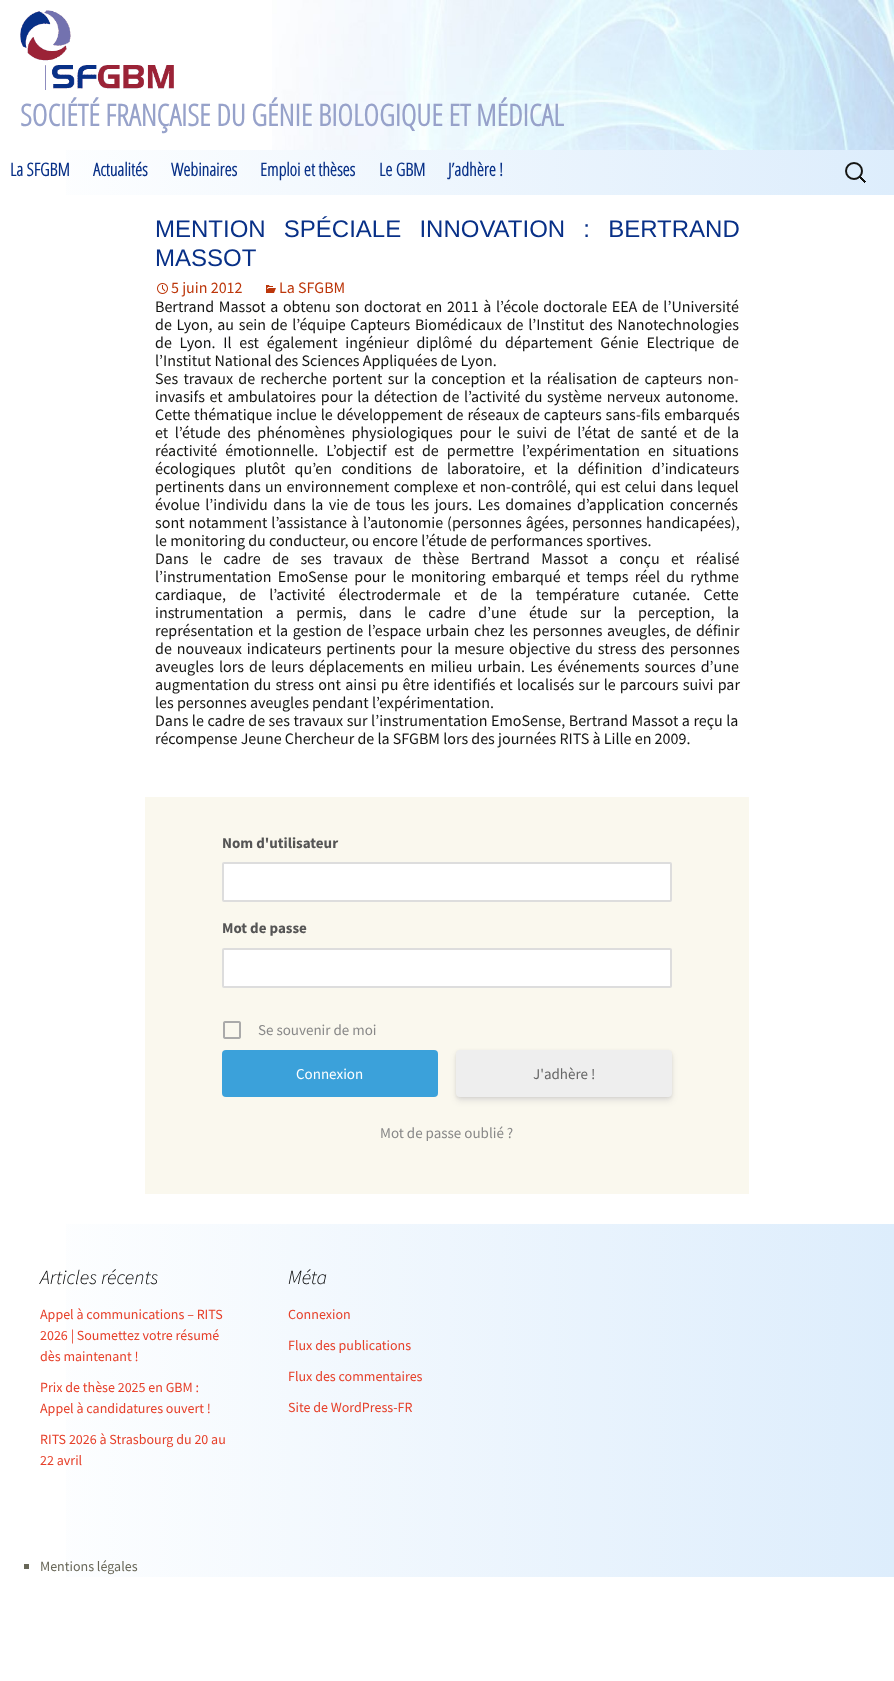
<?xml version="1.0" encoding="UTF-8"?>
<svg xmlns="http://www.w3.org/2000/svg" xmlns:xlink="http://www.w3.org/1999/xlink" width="894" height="1681">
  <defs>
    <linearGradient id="g1" gradientUnits="userSpaceOnUse" x1="0" y1="173" x2="894" y2="172"><stop offset="0" stop-color="#ffffff" /><stop offset="1" stop-color="#ddedfc" /></linearGradient>
    <linearGradient id="g2" gradientUnits="userSpaceOnUse" x1="0" y1="1401" x2="894" y2="1401"><stop offset="0" stop-color="#ffffff" /><stop offset="1" stop-color="#ddedfc" /></linearGradient>
    <linearGradient id="g3" gradientUnits="userSpaceOnUse" x1="0" y1="1382" x2="894" y2="1382"><stop offset="0" stop-color="#ffffff" /><stop offset="1" stop-color="#ddedfc" /></linearGradient>
  </defs>
  <rect width="100%" height="100%" fill="#ffffff" />
  <image x="272" y="0" width="622" height="150" xlink:href="image1.png" />
  <image x="20" y="10" width="154" height="80" xlink:href="image2.png" />
  <rect x="66" y="150" width="828" height="45" fill="url(#g1)" />
  <image x="845" y="162" width="21" height="21" xlink:href="image3.png" />
  <image x="157" y="283" width="11" height="11" xlink:href="image4.png" />
  <image x="266" y="285" width="10" height="8" xlink:href="image5.png" />
  <rect x="145" y="797" width="604" height="397" fill="#faf8ee" />
  <rect x="223" y="863" width="448" height="38" rx="1" fill="#ffffff" stroke="#dddddd" stroke-width="2" />
  <rect x="223" y="949" width="448" height="38" rx="1" fill="#ffffff" stroke="#dddddd" stroke-width="2" />
  <image x="223" y="1021" width="18" height="18" xlink:href="image6.png" />
  <rect x="222" y="1050" width="216" height="47" rx="4" fill="#3ba1da" />
  <rect x="456" y="1051" width="216" height="47" rx="4" fill="#000000" fill-opacity="0.08" filter="blur(1.5px)" />
  <rect x="456" y="1054" width="216" height="47" rx="4" fill="#32325d" fill-opacity="0.11" filter="blur(3px)" />
  <rect x="456" y="1050" width="216" height="47" rx="4" fill="#eeeeee" />
  <rect x="66" y="1540" width="828" height="37" fill="url(#g2)" />
  <rect x="66" y="1224" width="828" height="316" fill="url(#g3)" />
  <rect x="24" y="1564" width="5" height="5" fill="#686758" />
  <text x="20" y="126" style="font-family: Open Sans Condensed; font-size: 30px; font-weight: bold; fill: #97a2ca">SOCIÉTÉ FRANÇAISE DU GÉNIE BIOLOGIQUE ET MÉDICAL</text>
  <text x="10" y="176" style="font-family: Open Sans Condensed; font-size: 18px; font-weight: bold; fill: #083087">La SFGBM</text>
  <text x="93" y="176" style="font-family: Open Sans Condensed; font-size: 18px; font-weight: bold; fill: #083087">Actualités</text>
  <text x="171" y="176" style="font-family: Open Sans Condensed; font-size: 18px; font-weight: bold; fill: #083087">Webinaires</text>
  <text x="260" y="176" style="font-family: Open Sans Condensed; font-size: 18px; font-weight: bold; fill: #083087">Emploi et thèses</text>
  <text x="379" y="176" style="font-family: Open Sans Condensed; font-size: 18px; font-weight: bold; fill: #083087">Le GBM</text>
  <text x="448" y="176" style="font-family: Open Sans Condensed; font-size: 18px; font-weight: bold; fill: #083087">J’adhère !</text>
  <text x="155" y="237" word-spacing="11.5" style="font-family: Liberation Sans; font-size: 24px; fill: #083087">MENTION SPÉCIALE INNOVATION : BERTRAND</text>
  <text x="155" y="266" style="font-family: Liberation Sans; font-size: 24px; fill: #083087">MASSOT</text>
  <text x="171" y="293" style="font-family: Source Sans Pro; font-size: 16px; fill: #bc360a">5 juin 2012</text>
  <text x="279" y="293" style="font-family: Source Sans Pro; font-size: 16px; fill: #bc360a">La SFGBM</text>
  <text x="155" y="312" word-spacing="1.4" style="font-family: Source Sans Pro; font-size: 16px; fill: #141412">Bertrand Massot a obtenu son doctorat en 2011 à l’école doctorale EEA de l’Université</text>
  <text x="155" y="330" word-spacing="1.5" style="font-family: Source Sans Pro; font-size: 16px; fill: #141412">de Lyon, au sein de l’équipe Capteurs Biomédicaux de l’Institut des Nanotechnologies</text>
  <text x="155" y="348" word-spacing="4.5" style="font-family: Source Sans Pro; font-size: 16px; fill: #141412">de Lyon. Il est également ingénieur diplômé du département Génie Electrique de</text>
  <text x="155" y="366" style="font-family: Source Sans Pro; font-size: 16px; fill: #141412">l’Institut National des Sciences Appliquées de Lyon.</text>
  <text x="155" y="384" word-spacing="2" style="font-family: Source Sans Pro; font-size: 16px; fill: #141412">Ses travaux de recherche portent sur la conception et la réalisation de capteurs non-</text>
  <text x="155" y="402" word-spacing="1.5" style="font-family: Source Sans Pro; font-size: 16px; fill: #141412">invasifs et ambulatoires pour la détection de l’activité du système nerveux autonome.</text>
  <text x="155" y="420" word-spacing="0.75" style="font-family: Source Sans Pro; font-size: 16px; fill: #141412">Cette thématique inclue le développement de réseaux de capteurs sans-fils embarqués</text>
  <text x="155" y="438" word-spacing="3.4" style="font-family: Source Sans Pro; font-size: 16px; fill: #141412">et l’étude des phénomènes physiologiques pour le suivi de l’état de santé et de la</text>
  <text x="155" y="456" word-spacing="4.75" style="font-family: Source Sans Pro; font-size: 16px; fill: #141412">réactivité émotionnelle. L’objectif est de permettre l’expérimentation en situations</text>
  <text x="155" y="474" word-spacing="6" style="font-family: Source Sans Pro; font-size: 16px; fill: #141412">écologiques plutôt qu’en conditions de laboratoire, et la définition d’indicateurs</text>
  <text x="155" y="492" word-spacing="1" style="font-family: Source Sans Pro; font-size: 16px; fill: #141412">pertinents dans un environnement complexe et non-contrôlé, qui est celui dans lequel</text>
  <text x="155" y="510" word-spacing="2.25" style="font-family: Source Sans Pro; font-size: 16px; fill: #141412">évolue l’individu dans la vie de tous les jours. Les domaines d’application concernés</text>
  <text x="155" y="528" word-spacing="0.75" style="font-family: Source Sans Pro; font-size: 16px; fill: #141412">sont notamment l’assistance à l’autonomie (personnes âgées, personnes handicapées),</text>
  <text x="155" y="546" style="font-family: Source Sans Pro; font-size: 16px; fill: #141412">le monitoring du conducteur, ou encore l’étude de performances sportives.</text>
  <text x="155" y="564" word-spacing="8.25" style="font-family: Source Sans Pro; font-size: 16px; fill: #141412">Dans le cadre de ses travaux de thèse Bertrand Massot a conçu et réalisé</text>
  <text x="155" y="582" word-spacing="3.1" style="font-family: Source Sans Pro; font-size: 16px; fill: #141412">l’instrumentation EmoSense pour le monitoring embarqué et temps réel du rythme</text>
  <text x="155" y="600" word-spacing="10" style="font-family: Source Sans Pro; font-size: 16px; fill: #141412">cardiaque, de l’activité électrodermale et de la température cutanée. Cette</text>
  <text x="155" y="618" word-spacing="9.25" style="font-family: Source Sans Pro; font-size: 16px; fill: #141412">instrumentation a permis, dans le cadre d’une étude sur la perception, la</text>
  <text x="155" y="636" word-spacing="1.4" style="font-family: Source Sans Pro; font-size: 16px; fill: #141412">représentation et la gestion de l’espace urbain chez les personnes aveugles, de définir</text>
  <text x="155" y="654" word-spacing="1.75" style="font-family: Source Sans Pro; font-size: 16px; fill: #141412">de nouveaux indicateurs pertinents pour la mesure objective du stress des personnes</text>
  <text x="155" y="672" word-spacing="1.9" style="font-family: Source Sans Pro; font-size: 16px; fill: #141412">aveugles lors de leurs déplacements en milieu urbain. Les événements sources d’une</text>
  <text x="155" y="690" word-spacing="1" style="font-family: Source Sans Pro; font-size: 16px; fill: #141412">augmentation du stress ont ainsi pu être identifiés et localisés sur le parcours suivi par</text>
  <text x="155" y="708" style="font-family: Source Sans Pro; font-size: 16px; fill: #141412">les personnes aveugles pendant l’expérimentation.</text>
  <text x="155" y="726" word-spacing="0.3" style="font-family: Source Sans Pro; font-size: 16px; fill: #141412">Dans le cadre de ses travaux sur l’instrumentation EmoSense, Bertrand Massot a reçu la</text>
  <text x="155" y="744" style="font-family: Source Sans Pro; font-size: 16px; fill: #141412">récompense Jeune Chercheur de la SFGBM lors des journées RITS à Lille en 2009.</text>
  <text x="222" y="848" style="font-family: Source Sans Pro; font-size: 15px; font-weight: bold; fill: #555555">Nom d'utilisateur</text>
  <text x="222" y="933" style="font-family: Source Sans Pro; font-size: 15px; font-weight: bold; fill: #555555">Mot de passe</text>
  <text x="258" y="1035" style="font-family: Source Sans Pro; font-size: 15px; fill: #888888">Se souvenir de moi</text>
  <text x="296" y="1079" style="font-family: Source Sans Pro; font-size: 15px; fill: #ffffff">Connexion</text>
  <text x="533" y="1079" style="font-family: Source Sans Pro; font-size: 15px; fill: #666666">J'adhère !</text>
  <text x="380" y="1138" style="font-family: Source Sans Pro; font-size: 15px; fill: #888888">Mot de passe oublié ?</text>
  <text x="40" y="1284" style="font-family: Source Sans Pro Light; font-size: 20px; font-weight: 300; font-style: italic; fill: #000000">Articles récents</text>
  <text x="40" y="1319" style="font-family: Source Sans Pro; font-size: 14px; fill: #e6402a">Appel à communications – RITS</text>
  <text x="40" y="1340" style="font-family: Source Sans Pro; font-size: 14px; fill: #e6402a">2026 | Soumettez votre résumé</text>
  <text x="40" y="1361" style="font-family: Source Sans Pro; font-size: 14px; fill: #e6402a">dès maintenant !</text>
  <text x="40" y="1392" style="font-family: Source Sans Pro; font-size: 14px; fill: #e6402a">Prix de thèse 2025 en GBM :</text>
  <text x="40" y="1413" style="font-family: Source Sans Pro; font-size: 14px; fill: #e6402a">Appel à candidatures ouvert !</text>
  <text x="40" y="1444" style="font-family: Source Sans Pro; font-size: 14px; fill: #e6402a">RITS 2026 à Strasbourg du 20 au</text>
  <text x="40" y="1465" style="font-family: Source Sans Pro; font-size: 14px; fill: #e6402a">22 avril</text>
  <text x="288" y="1284" style="font-family: Source Sans Pro Light; font-size: 20px; font-weight: 300; font-style: italic; fill: #000000">Méta</text>
  <text x="288" y="1319" style="font-family: Source Sans Pro; font-size: 14px; fill: #e6402a">Connexion</text>
  <text x="288" y="1350" style="font-family: Source Sans Pro; font-size: 14px; fill: #e6402a">Flux des publications</text>
  <text x="288" y="1381" style="font-family: Source Sans Pro; font-size: 14px; fill: #e6402a">Flux des commentaires</text>
  <text x="288" y="1412" style="font-family: Source Sans Pro; font-size: 14px; fill: #e6402a">Site de WordPress-FR</text>
  <text x="40" y="1571" style="font-family: Source Sans Pro; font-size: 14px; fill: #686758">Mentions légales</text>
</svg>
